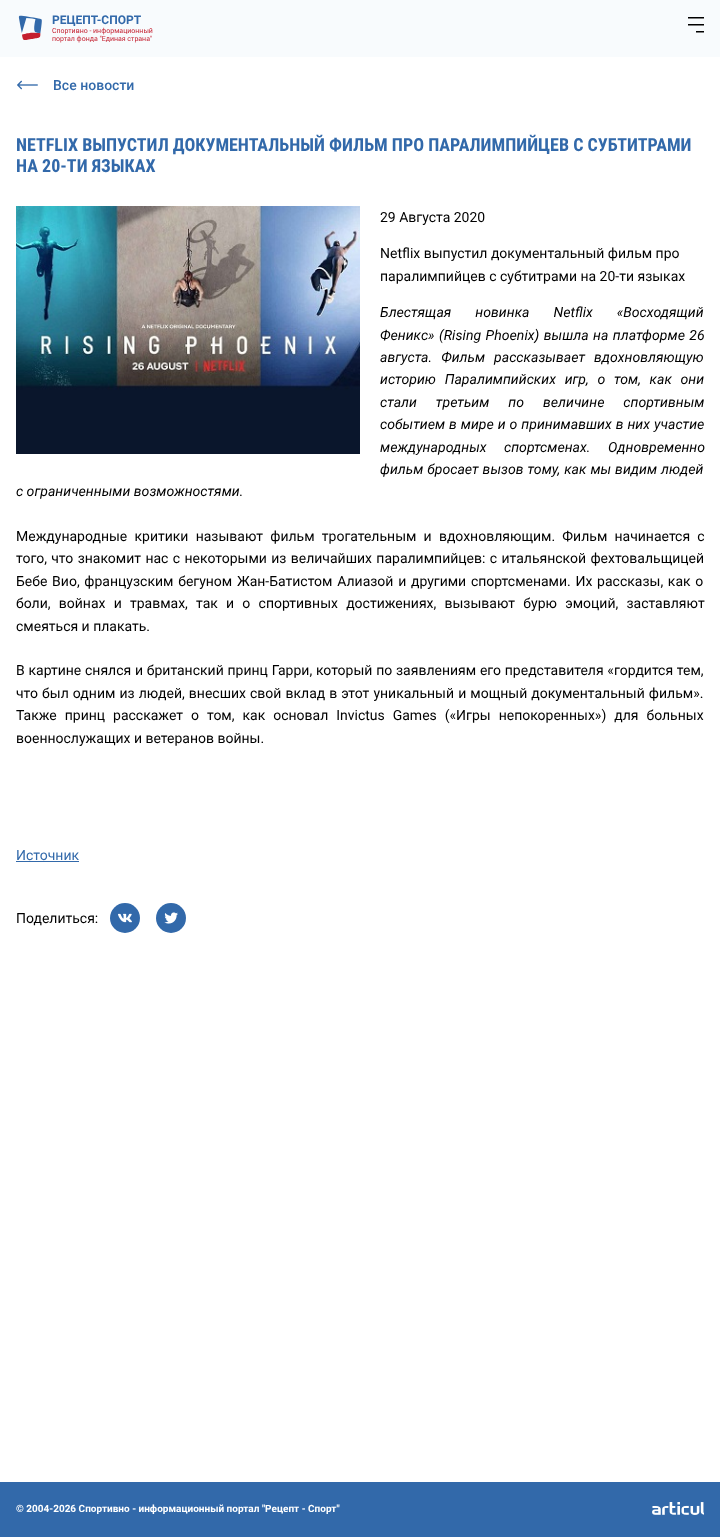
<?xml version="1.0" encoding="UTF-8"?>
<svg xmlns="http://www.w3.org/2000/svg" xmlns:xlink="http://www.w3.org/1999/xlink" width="720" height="1537">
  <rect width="100%" height="100%" fill="#ffffff" />
  <rect width="720" height="57" fill="#f8fbfd" />
  <image x="18" y="15" width="24" height="25" xlink:href="image1.png" />
  <image x="688" y="17" width="16" height="16" xlink:href="image2.png" />
  <image x="17" y="80" width="21" height="10" xlink:href="image3.png" />
  <image x="16" y="206" width="344" height="248" xlink:href="image4.png" />
  <rect x="16" y="861" width="63" height="1" fill="#3269aa" />
  <circle cx="125" cy="918" r="15" fill="#3269aa" />
  <image x="118" y="913" width="14" height="10" xlink:href="image5.png" />
  <circle cx="171" cy="918" r="15" fill="#3269aa" />
  <image x="164" y="912" width="14" height="12" xlink:href="image6.png" />
  <rect y="1482" width="720" height="55" fill="#3269aa" />
  <image x="652" y="1502" width="52" height="13" xlink:href="image7.png" />
  <text x="52" y="24" style="font-family: Roboto; font-size: 12px; font-weight: bold; fill: #3269aa">РЕЦЕПТ-СПОРТ</text>
  <text x="52" y="33" style="font-family: Roboto; font-size: 7px; fill: #c41f2f">Спортивно - информационный</text>
  <text x="52" y="41" style="font-family: Roboto; font-size: 7px; fill: #c41f2f">портал фонда "Единая страна"</text>
  <text x="53" y="90" style="font-family: Roboto; font-size: 14px; font-weight: 500; fill: #3269aa">Все новости</text>
  <text x="16" y="151" style="font-family: Roboto Condensed; font-size: 18px; font-weight: bold; fill: #3269aa">NETFLIX ВЫПУСТИЛ ДОКУМЕНТАЛЬНЫЙ ФИЛЬМ ПРО ПАРАЛИМПИЙЦЕВ С СУБТИТРАМИ</text>
  <text x="16" y="172" style="font-family: Roboto Condensed; font-size: 18px; font-weight: bold; fill: #3269aa">НА 20-ТИ ЯЗЫКАХ</text>
  <text x="380" y="222" style="font-family: Roboto; font-size: 14px; fill: #000000">29 Августа 2020</text>
  <text x="380" y="258" style="font-family: Roboto; font-size: 14px; fill: #000000">Netflix выпустил документальный фильм про</text>
  <text x="380" y="281" style="font-family: Roboto; font-size: 14px; fill: #000000">паралимпийцев с субтитрами на 20-ти языках</text>
  <text x="380" y="317" word-spacing="20.5" style="font-family: Roboto; font-size: 14px; font-style: italic; fill: #000000">Блестящая новинка Netflix «Восходящий</text>
  <text x="380" y="340" word-spacing="1" style="font-family: Roboto; font-size: 14px; font-style: italic; fill: #000000">Феникс» (Rising Phoenix) вышла на платформе 26</text>
  <text x="380" y="362" word-spacing="5.5" style="font-family: Roboto; font-size: 14px; font-style: italic; fill: #000000">августа. Фильм рассказывает вдохновляющую</text>
  <text x="380" y="384" word-spacing="5.25" style="font-family: Roboto; font-size: 14px; font-style: italic; fill: #000000">историю Паралимпийских игр, о том, как они</text>
  <text x="380" y="407" word-spacing="15.5" style="font-family: Roboto; font-size: 14px; font-style: italic; fill: #000000">стали третьим по величине спортивным</text>
  <text x="380" y="429" word-spacing="0.5" style="font-family: Roboto; font-size: 14px; font-style: italic; fill: #000000">событием в мире и о принимавших в них участие</text>
  <text x="380" y="452" word-spacing="14" style="font-family: Roboto; font-size: 14px; font-style: italic; fill: #000000">международных спортсменах. Одновременно</text>
  <text x="380" y="474" word-spacing="0.5" style="font-family: Roboto; font-size: 14px; font-style: italic; fill: #000000">фильм бросает вызов тому, как мы видим людей</text>
  <text x="16" y="496" style="font-family: Roboto; font-size: 14px; font-style: italic; fill: #000000">с ограниченными возможностями.</text>
  <text x="16" y="541" word-spacing="3.75" style="font-family: Roboto; font-size: 14px; fill: #000000">Международные критики называют фильм трогательным и вдохновляющим. Фильм начинается с</text>
  <text x="16" y="563" word-spacing="0.9" style="font-family: Roboto; font-size: 14px; fill: #000000">того, что знакомит нас с некоторыми из величайших паралимпийцев: с итальянской фехтовальщицей</text>
  <text x="16" y="586" word-spacing="1.25" style="font-family: Roboto; font-size: 14px; fill: #000000">Бебе Вио, французским бегуном Жан-Батистом Алиазой и другими спортсменами. Их рассказы, как о</text>
  <text x="16" y="608" word-spacing="4.75" style="font-family: Roboto; font-size: 14px; fill: #000000">боли, войнах и травмах, так и о спортивных достижениях, вызывают бурю эмоций, заставляют</text>
  <text x="16" y="631" style="font-family: Roboto; font-size: 14px; fill: #000000">смеяться и плакать.</text>
  <text x="16" y="675" word-spacing="0.3" style="font-family: Roboto; font-size: 14px; fill: #000000">В картине снялся и британский принц Гарри, который по заявлениям его представителя «гордится тем,</text>
  <text x="16" y="698" word-spacing="0.6" style="font-family: Roboto; font-size: 14px; fill: #000000">что был одним из людей, внесших свой вклад в этот уникальный и мощный документальный фильм».</text>
  <text x="16" y="720" word-spacing="4.5" style="font-family: Roboto; font-size: 14px; fill: #000000">Также принц расскажет о том, как основал Invictus Games («Игры непокоренных») для больных</text>
  <text x="16" y="743" style="font-family: Roboto; font-size: 14px; fill: #000000">военнослужащих и ветеранов войны.</text>
  <text x="16" y="860" style="font-family: Roboto; font-size: 14px; fill: #3269aa">Источник</text>
  <text x="16" y="923" style="font-family: Roboto; font-size: 14px; fill: #000000">Поделиться:</text>
  <text x="16" y="1512" style="font-family: Roboto; font-size: 10px; font-weight: bold; fill: #ffffff">© 2004-2026 Спортивно - информационный портал "Рецепт - Спорт"</text>
</svg>
